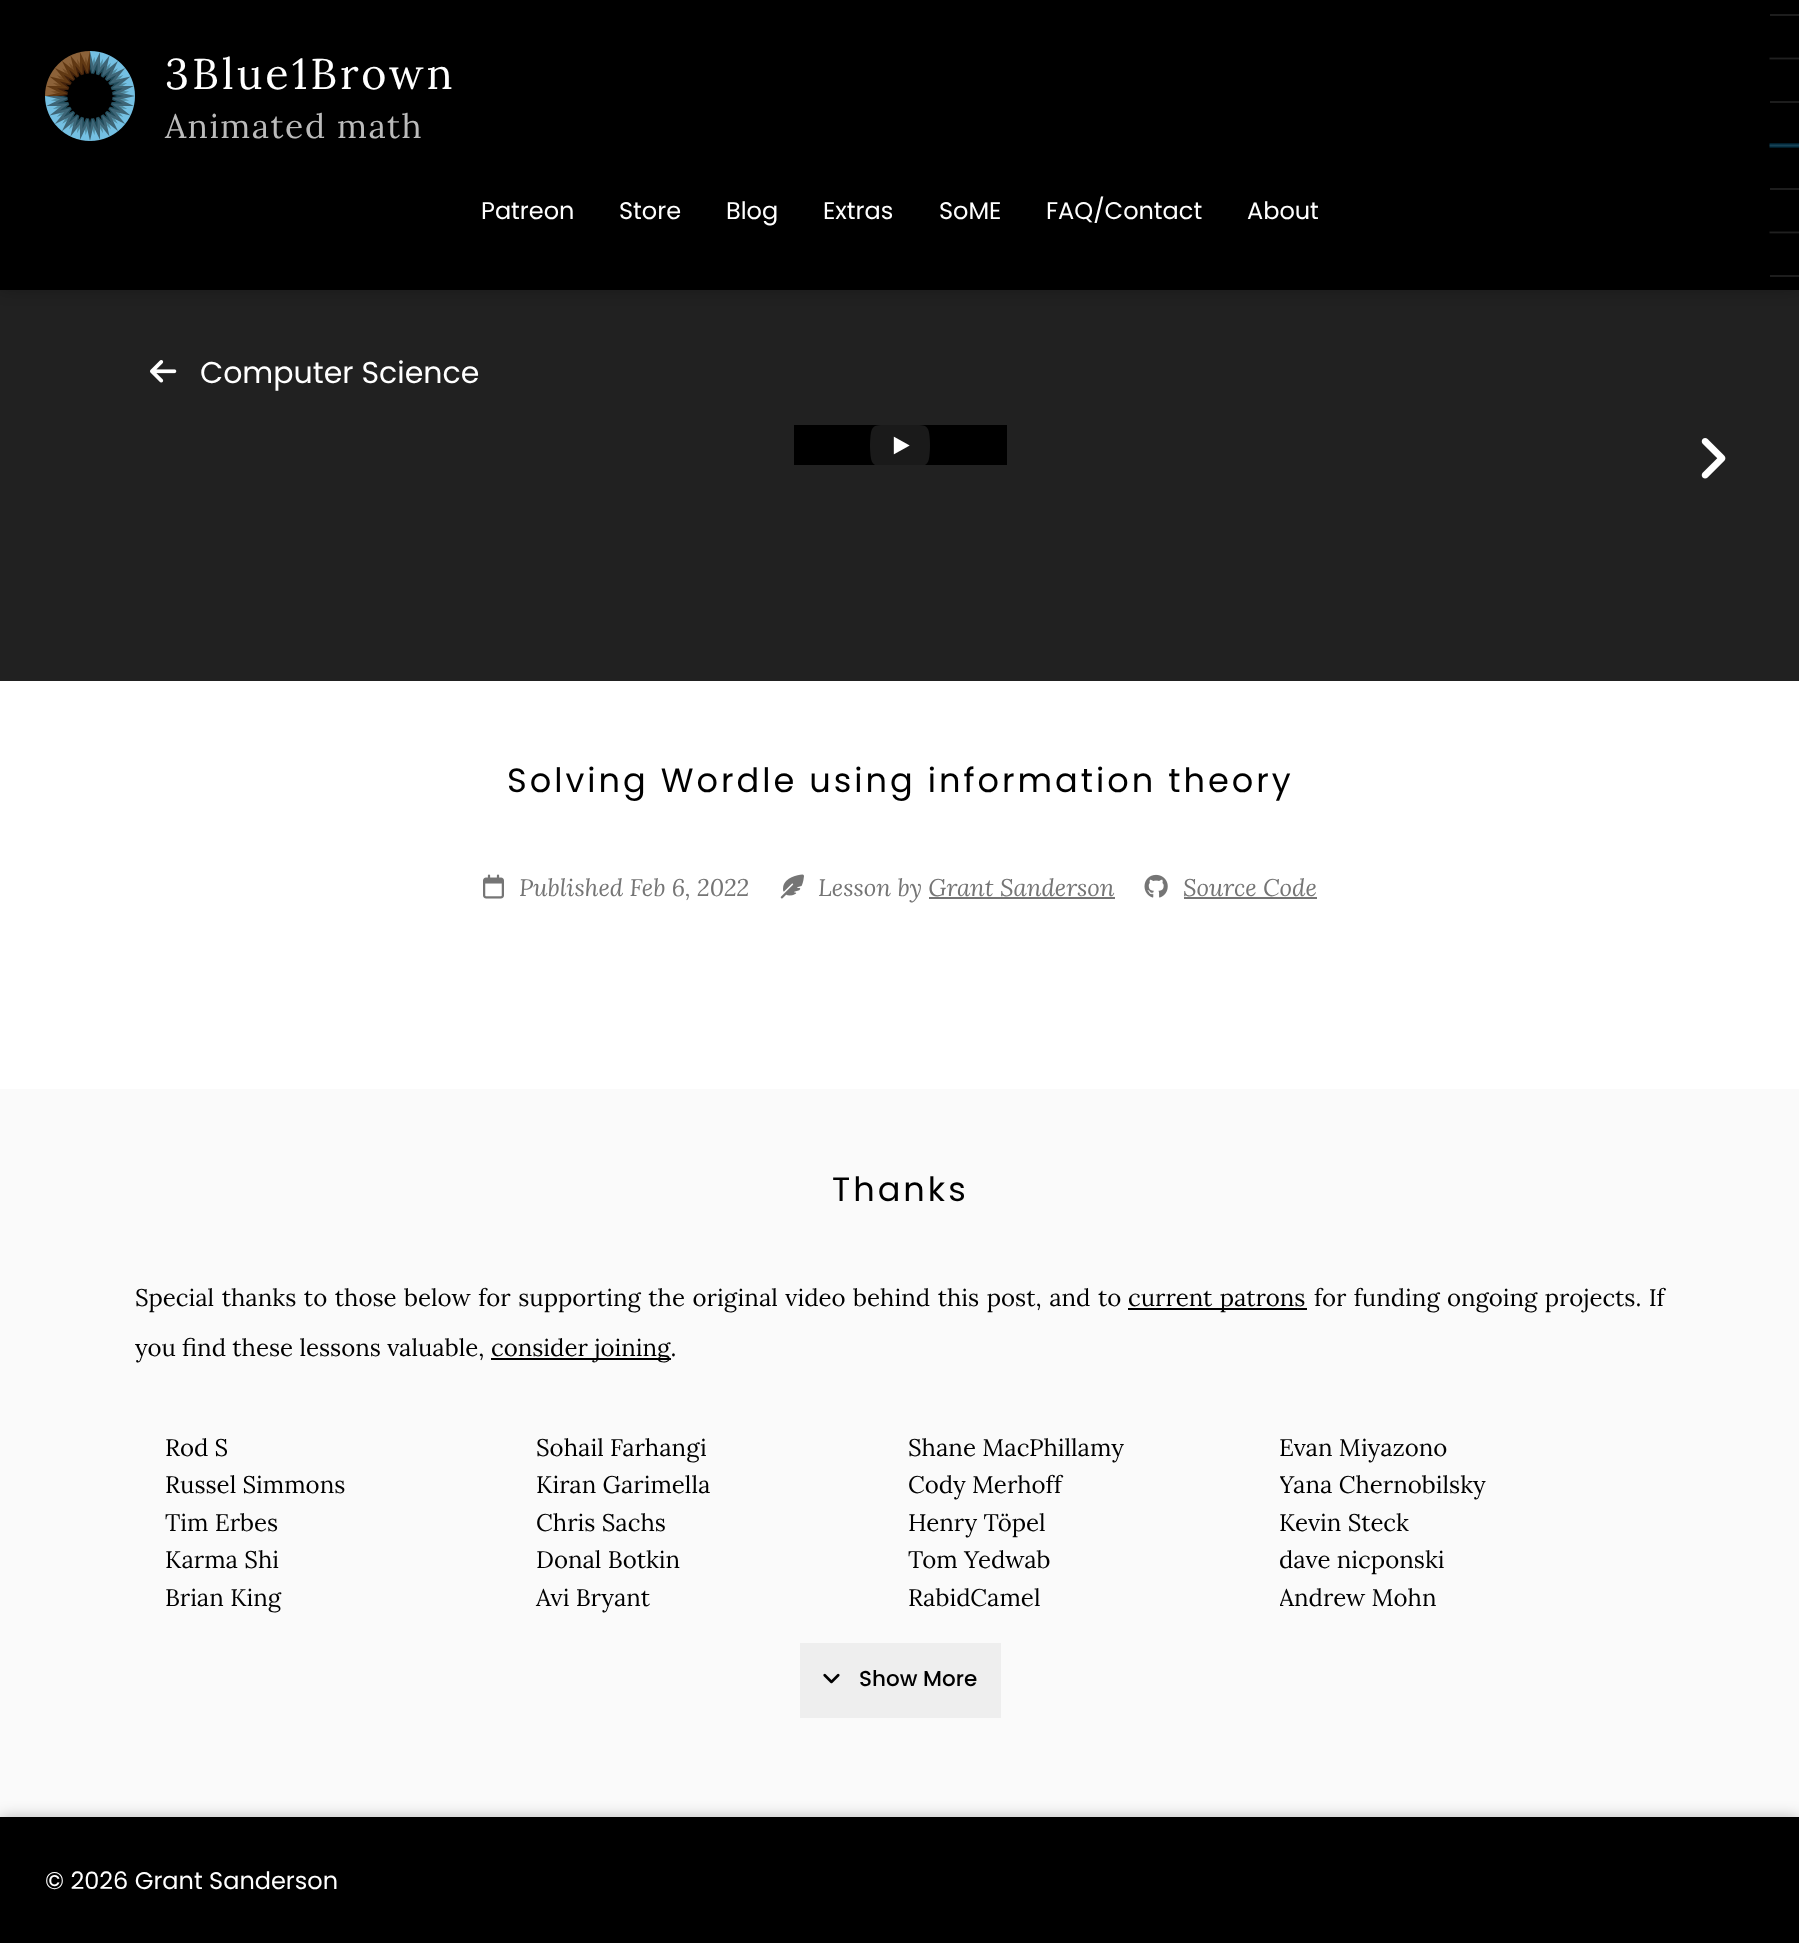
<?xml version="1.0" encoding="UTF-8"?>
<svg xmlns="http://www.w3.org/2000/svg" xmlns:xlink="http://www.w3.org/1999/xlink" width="1799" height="1943">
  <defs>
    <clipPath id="clip1"><rect x="1280" y="1470" width="355" height="30" /></clipPath>
    <clipPath id="clip2"><rect x="1280" y="1545" width="355" height="30" /></clipPath>
    <clipPath id="clip3"><rect x="1280" y="1583" width="355" height="30" /></clipPath>
  </defs>
  <rect width="100%" height="100%" fill="#ffffff" />
  <rect y="290" width="1799" height="391" fill="#212121" />
  <rect width="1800" height="290" fill="#000000" fill-opacity="0.25" filter="blur(7.5px)" />
  <rect width="1799" height="290" fill="#000000" />
  <image x="45" y="51" width="90" height="90" xlink:href="image1.png" />
  <image x="1769" y="14" width="30" height="263" xlink:href="image2.png" />
  <image x="150" y="360" width="27" height="23" xlink:href="image3.png" />
  <rect x="794" y="425" width="213" height="40" fill="#000000" />
  <image x="870" y="425" width="60" height="40" xlink:href="image4.png" />
  <image x="1701" y="438" width="25" height="41" xlink:href="image5.png" />
  <image x="483" y="874" width="21" height="25" xlink:href="image6.png" />
  <image x="780" y="874" width="24" height="25" xlink:href="image7.png" />
  <rect x="929" y="897" width="186" height="2" fill="#757575" />
  <image x="1144" y="874" width="24" height="24" xlink:href="image8.png" />
  <rect x="1184" y="897" width="133" height="2" fill="#757575" />
  <rect y="1089" width="1799" height="728" fill="#fafafa" />
  <rect x="1128" y="1308" width="179" height="2" fill="#000000" />
  <rect x="491" y="1358" width="180" height="2" fill="#000000" />
  <rect x="800" y="1643" width="201" height="75" fill="#eeeeee" />
  <image x="823" y="1673" width="17" height="11" xlink:href="image9.png" />
  <rect y="1817" width="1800" height="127" fill="#000000" fill-opacity="0.25" filter="blur(7.5px)" />
  <rect y="1817" width="1799" height="126" fill="#000000" />
  <text x="165" y="89" style="font-family: Lora; font-size: 43px; letter-spacing: 3px; fill: #ffffff">3B</text>
  <text x="222" y="89" style="font-family: Lora; font-size: 43px; letter-spacing: 3px; fill: #ffffff">lue1B</text>
  <text x="340" y="89" style="font-family: Lora; font-size: 43px; letter-spacing: 3px; fill: #ffffff">ro</text>
  <text x="389" y="89" style="font-family: Lora; font-size: 43px; letter-spacing: 3px; fill: #ffffff">wn</text>
  <text x="165" y="138" style="font-family: Lora; font-size: 33.6px; letter-spacing: 1.5px; fill: #bbbbbb">Animate</text>
  <text x="305" y="138" style="font-family: Lora; font-size: 33.6px; letter-spacing: 1.5px; fill: #bbbbbb">d math</text>
  <text x="481" y="219" style="font-family: Poppins; font-size: 24px; fill: #ffffff">Patreon</text>
  <text x="619" y="219" style="font-family: Poppins; font-size: 24px; fill: #ffffff">Store</text>
  <text x="726" y="219" style="font-family: Poppins; font-size: 24px; fill: #ffffff">Blog</text>
  <text x="823" y="219" style="font-family: Poppins; font-size: 24px; fill: #ffffff">Extras</text>
  <text x="939" y="219" style="font-family: Poppins; font-size: 24px; fill: #ffffff">SoME</text>
  <text x="1046" y="219" style="font-family: Poppins; font-size: 24px; fill: #ffffff">FAQ/Contact</text>
  <text x="1247" y="219" style="font-family: Poppins; font-size: 24px; fill: #ffffff">About</text>
  <text x="200" y="383" style="font-family: Poppins; font-size: 30px; fill: #ffffff">Computer Science</text>
  <text x="507" y="792" style="font-family: Poppins; font-size: 33.6px; letter-spacing: 3px; fill: #000000">Solving Wordle using information theory</text>
  <text x="519" y="896" style="font-family: Lora; font-size: 24px; font-style: italic; fill: #757575">Published Feb 6, 2022</text>
  <text x="818" y="896" style="font-family: Lora; font-size: 24px; font-style: italic; fill: #757575">Lesson by Grant Sanderson</text>
  <text x="1183" y="896" style="font-family: Lora; font-size: 24px; font-style: italic; fill: #757575">Source Code</text>
  <text x="832" y="1201" style="font-family: Poppins; font-size: 33.6px; letter-spacing: 3px; fill: #000000">Thanks</text>
  <text x="135" y="1306" word-spacing="1.25" style="font-family: Lora; font-size: 24px; fill: #000000">Special thanks to those below for supporting the original video behind this post, and to</text>
  <text x="1128" y="1306" word-spacing="1" style="font-family: Lora; font-size: 24px; fill: #000000">current patrons</text>
  <text x="1314" y="1306" word-spacing="1" style="font-family: Lora; font-size: 24px; fill: #000000">for funding ongoing projects. If</text>
  <text x="135" y="1356" style="font-family: Lora; font-size: 24px; fill: #000000">you find these lessons valuable,</text>
  <text x="491" y="1356" style="font-family: Lora; font-size: 24px; fill: #000000">consider joining.</text>
  <text x="165" y="1456" style="font-family: Lora; font-size: 24px; fill: #000000">Rod S</text>
  <text x="536" y="1456" style="font-family: Lora; font-size: 24px; fill: #000000">Sohail Farhangi</text>
  <text x="908" y="1456" style="font-family: Lora; font-size: 24px; fill: #000000">Shane MacPhillamy</text>
  <text x="1279" y="1456" style="font-family: Lora; font-size: 24px; fill: #000000">Evan Miyazono</text>
  <text x="165" y="1493" style="font-family: Lora; font-size: 24px; fill: #000000">Russel Simmons</text>
  <text x="536" y="1493" style="font-family: Lora; font-size: 24px; fill: #000000">Kiran Garimella</text>
  <text x="908" y="1493" style="font-family: Lora; font-size: 24px; fill: #000000">Cody Merhoff</text>
  <g clip-path="url(#clip1)">
    <text x="1279" y="1493" style="font-family: Lora; font-size: 24px; fill: #000000">Yana Chernobilsky</text>
  </g>
  <text x="165" y="1531" style="font-family: Lora; font-size: 24px; fill: #000000">Tim Erbes</text>
  <text x="536" y="1531" style="font-family: Lora; font-size: 24px; fill: #000000">Chris Sachs</text>
  <text x="908" y="1531" style="font-family: Lora; font-size: 24px; fill: #000000">Henry Töpel</text>
  <text x="1279" y="1531" style="font-family: Lora; font-size: 24px; fill: #000000">Kevin Steck</text>
  <text x="165" y="1568" style="font-family: Lora; font-size: 24px; fill: #000000">Karma Shi</text>
  <text x="536" y="1568" style="font-family: Lora; font-size: 24px; fill: #000000">Donal Botkin</text>
  <text x="908" y="1568" style="font-family: Lora; font-size: 24px; fill: #000000">Tom Yedwab</text>
  <g clip-path="url(#clip2)">
    <text x="1279" y="1568" style="font-family: Lora; font-size: 24px; fill: #000000">dave nicponski</text>
  </g>
  <text x="165" y="1606" style="font-family: Lora; font-size: 24px; fill: #000000">Brian King</text>
  <text x="536" y="1606" style="font-family: Lora; font-size: 24px; fill: #000000">Avi Bryant</text>
  <text x="908" y="1606" style="font-family: Lora; font-size: 24px; fill: #000000">RabidCamel</text>
  <g clip-path="url(#clip3)">
    <text x="1279" y="1606" style="font-family: Lora; font-size: 24px; fill: #000000">Andrew Mohn</text>
  </g>
  <text x="859" y="1686" style="font-family: Poppins; font-size: 21.5px; font-weight: 500; fill: #000000">Show More</text>
  <text x="45" y="1889" style="font-family: Poppins; font-size: 24px; fill: #ffffff">© 2026 Grant Sanderson</text>
</svg>
